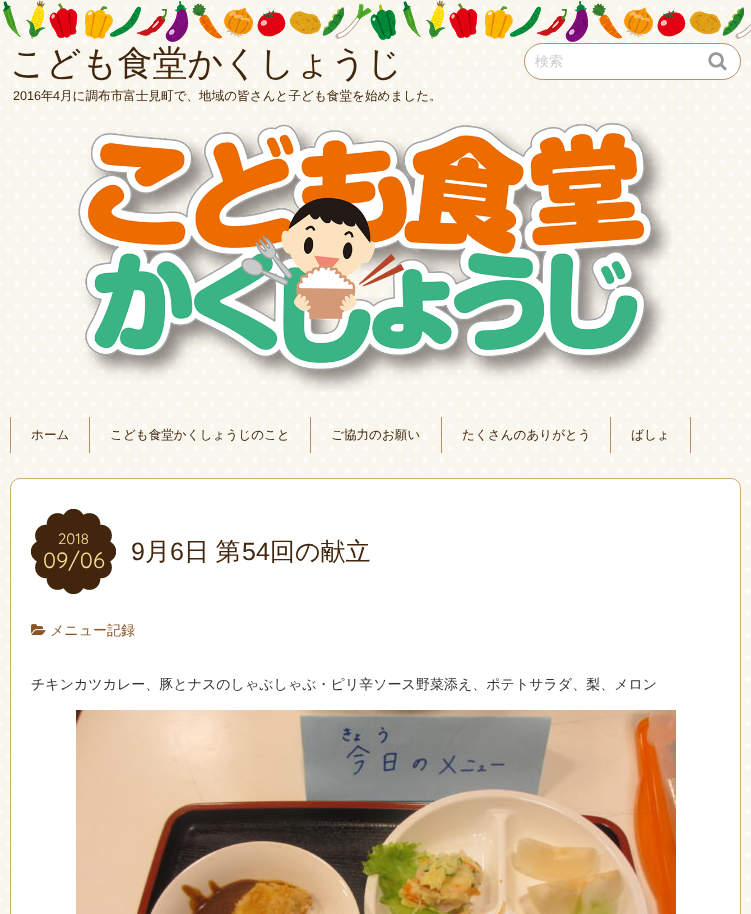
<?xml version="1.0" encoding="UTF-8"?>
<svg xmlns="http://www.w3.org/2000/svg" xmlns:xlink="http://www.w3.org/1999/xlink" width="751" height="914">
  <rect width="100%" height="100%" fill="#ffffff" />
  <image x="0" y="0" width="751" height="914" xlink:href="image1.png" />
  <image x="3" y="0" width="748" height="42" xlink:href="image2.png" />
  <rect x="524" y="43" width="217" height="37" rx="18.5" fill="#ffffff" />
  <image x="708" y="52" width="19" height="19" xlink:href="image3.png" />
  <rect x="524.5" y="43.5" width="216" height="36" rx="18" fill="none" stroke="#ba8d65" />
  <image x="78" y="122" width="594" height="270" xlink:href="image4.png" />
  <rect x="11" y="417" width="1" height="36" fill="#fefdfb" />
  <rect x="89" y="417" width="1" height="36" fill="#ba8d65" />
  <rect x="10" y="417" width="1" height="36" fill="#ba8d65" />
  <rect x="310" y="417" width="1" height="36" fill="#ba8d65" />
  <rect x="441" y="417" width="1" height="36" fill="#ba8d65" />
  <rect x="610" y="417" width="1" height="36" fill="#ba8d65" />
  <rect x="690" y="417" width="1" height="36" fill="#ba8d65" />
  <rect x="10.5" y="478.5" width="730" height="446" rx="9.5" fill="#ffffff" stroke="#d6ac75" />
  <image x="31" y="509" width="85" height="85" xlink:href="image5.png" />
  <image x="31" y="624" width="15" height="12" xlink:href="image6.png" />
  <image x="76" y="710" width="600" height="204" xlink:href="image7.png" />
  <text x="10" y="75" style="font-family: WenQuanYi Zen Hei; font-size: 35px; font-weight: 500; fill: #41250c">こども食堂かくしょうじ</text>
  <text x="13" y="100" style="font-family: Liberation Sans; font-size: 12.6px; fill: #41250c">2016</text>
  <text x="41" y="100" style="font-family: WenQuanYi Zen Hei; font-size: 12.6px; font-weight: 500; fill: #41250c">年</text>
  <text x="53" y="100" style="font-family: Liberation Sans; font-size: 12.6px; fill: #41250c">4</text>
  <text x="60" y="100" style="font-family: WenQuanYi Zen Hei; font-size: 12.6px; font-weight: 500; fill: #41250c">月に調布市富士見町で、地域の皆さんと子ども食堂を始めました。</text>
  <text x="535" y="66" style="font-family: WenQuanYi Zen Hei; font-size: 14px; font-weight: 500; fill: #cccccc">検索</text>
  <text x="31" y="439" style="font-family: WenQuanYi Zen Hei; font-size: 12.6px; font-weight: 500; fill: #41250c">ホーム</text>
  <text x="110" y="439" style="font-family: WenQuanYi Zen Hei; font-size: 12.6px; font-weight: 500; fill: #41250c">こども食堂かくしょうじのこと</text>
  <text x="331" y="439" style="font-family: WenQuanYi Zen Hei; font-size: 12.6px; font-weight: 500; fill: #41250c">ご協力のお願い</text>
  <text x="462" y="439" style="font-family: WenQuanYi Zen Hei; font-size: 12.6px; font-weight: 500; fill: #41250c">たくさんのありがとう</text>
  <text x="631" y="439" style="font-family: WenQuanYi Zen Hei; font-size: 12.6px; font-weight: 500; fill: #41250c">ばしょ</text>
  <text x="58" y="544" style="font-family: Quicksand; font-size: 15px; font-weight: 300; fill: #fae495">2018</text>
  <text x="43" y="568" style="font-family: Quicksand; font-size: 22px; font-weight: 300; fill: #fae495">09/06</text>
  <text x="131" y="560" style="font-family: Liberation Sans; font-size: 25px; fill: #41250c">9</text>
  <text x="145" y="560" style="font-family: WenQuanYi Zen Hei; font-size: 25px; font-weight: 500; fill: #41250c">月</text>
  <text x="170" y="560" style="font-family: Liberation Sans; font-size: 25px; fill: #41250c">6</text>
  <text x="184" y="560" word-spacing="-1" style="font-family: WenQuanYi Zen Hei; font-size: 25px; font-weight: 500; fill: #41250c">日 第</text>
  <text x="242" y="560" style="font-family: Liberation Sans; font-size: 25px; fill: #41250c">54</text>
  <text x="270" y="560" style="font-family: WenQuanYi Zen Hei; font-size: 25px; font-weight: 500; fill: #41250c">回の献立</text>
  <text x="50" y="635" style="font-family: WenQuanYi Zen Hei; font-size: 14px; font-weight: 500; fill: #895628">メニュー記録</text>
  <text x="31" y="689" style="font-family: WenQuanYi Zen Hei; font-size: 14px; font-weight: 500; fill: #333333">チキンカツカレー、豚とナスのしゃぶしゃぶ・ピリ辛ソース野菜添え、ポテトサラダ、梨、メロン</text>
</svg>
